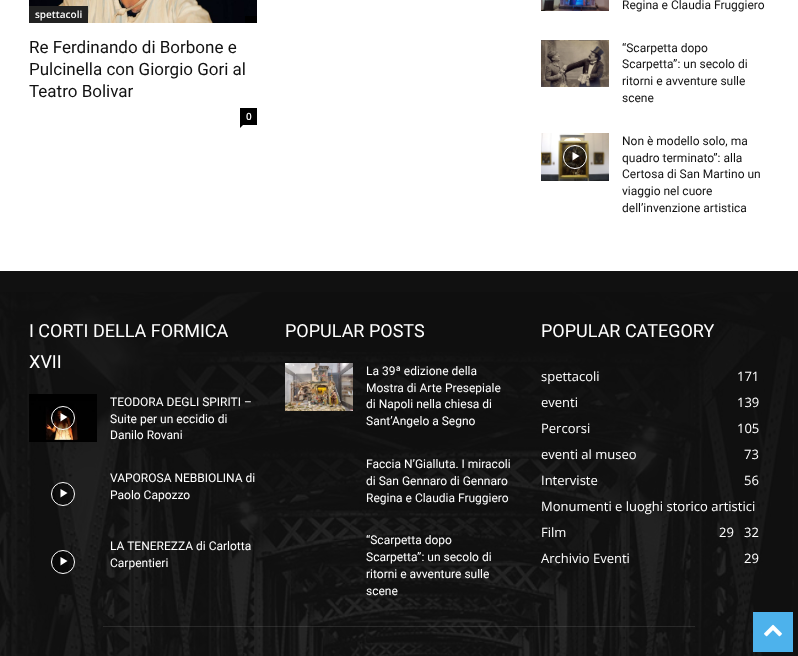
<?xml version="1.0" encoding="UTF-8"?>
<svg xmlns="http://www.w3.org/2000/svg" xmlns:xlink="http://www.w3.org/1999/xlink" width="798" height="656">
  <defs>
    <clipPath id="clip1"><path d="M 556 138 h 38 v 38 h -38 z m 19 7 c 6.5 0 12 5.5 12 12 c 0 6.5 -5.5 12 -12 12 c -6.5 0 -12 -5.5 -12 -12 c 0 -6.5 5.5 -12 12 -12 z" clip-rule="evenodd" /></clipPath>
    <clipPath id="clip2"><path d="M 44 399 h 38 v 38 h -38 z m 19 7 c 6.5 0 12 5.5 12 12 c 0 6.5 -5.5 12 -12 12 c -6.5 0 -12 -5.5 -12 -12 c 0 -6.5 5.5 -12 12 -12 z" clip-rule="evenodd" /></clipPath>
  </defs>
  <rect width="100%" height="100%" fill="#ffffff" />
  <image x="29" y="0" width="228" height="23" xlink:href="image1.png" />
  <rect x="29" y="6" width="59" height="17" fill="#222222" />
  <rect x="245" y="16" width="12" height="7" fill="#000000" />
  <rect x="240" y="108" width="17" height="17" fill="#000000" />
  <path d="M 240 125 h 3 l -3 3 z" fill="#000000" />
  <image x="541" y="0" width="68" height="11" xlink:href="image2.png" />
  <image x="541" y="40" width="68" height="47" xlink:href="image3.png" />
  <image x="541" y="133" width="68" height="48" xlink:href="image4.png" />
  <g clip-path="url(#clip1)">
    <rect x="563" y="145" width="24" height="24" rx="12" fill="#000000" fill-opacity="0.4" filter="blur(2px)" />
  </g>
  <circle cx="575" cy="157" r="11.5" fill="#000000" fill-opacity="0.48" stroke="#ffffff" />
  <path d="M 572.5 152 v 8.5 l 7 -4.5 z" fill="#ffffff" />
  <rect y="271" width="798" height="385" fill="#111111" />
  <image x="0" y="292" width="794" height="364" xlink:href="image5.png" />
  <image x="29" y="394" width="68" height="48" xlink:href="image6.png" />
  <g clip-path="url(#clip2)">
    <rect x="51" y="406" width="24" height="24" rx="12" fill="#000000" fill-opacity="0.4" filter="blur(2px)" />
  </g>
  <circle cx="63" cy="418" r="11.5" fill="#000000" fill-opacity="0.48" stroke="#ffffff" />
  <path d="M 60.5 413 v 8.5 l 7 -4.5 z" fill="#ffffff" />
  <circle cx="63" cy="494" r="11.5" fill="#000000" fill-opacity="0.48" stroke="#ffffff" />
  <path d="M 60.5 489 v 8.5 l 7 -4.5 z" fill="#ffffff" />
  <circle cx="63" cy="562" r="11.5" fill="#000000" fill-opacity="0.48" stroke="#ffffff" />
  <path d="M 60.5 557 v 8.5 l 7 -4.5 z" fill="#ffffff" />
  <image x="285" y="363" width="68" height="48" xlink:href="image7.png" />
  <rect x="103" y="626" width="592" height="1" fill="#ffffff" fill-opacity="0.1" />
  <rect x="753" y="612" width="40" height="40" fill="#4db2ec" />
  <image x="764" y="624" width="18" height="13" xlink:href="image8.png" />
  <text x="35" y="18" style="font-family: Open Sans; font-size: 10px; font-weight: 600; fill: #ffffff">spettacoli</text>
  <text x="29" y="53" style="font-family: Roboto; font-size: 17px; fill: #111111">Re Ferdinando di Borbone e</text>
  <text x="29" y="75" style="font-family: Roboto; font-size: 17px; fill: #111111">Pulcinella con Giorgio Gori al</text>
  <text x="29" y="97" style="font-family: Roboto; font-size: 17px; fill: #111111">Teatro Bolivar</text>
  <text x="246" y="120" style="font-family: Open Sans; font-size: 10px; font-weight: 600; fill: #ffffff">0</text>
  <text x="622" y="9" style="font-family: Roboto; font-size: 12px; fill: #111111">Regina e Claudia Fruggiero</text>
  <text x="622" y="52" style="font-family: Roboto; font-size: 12px; fill: #111111">“Scarpetta dopo</text>
  <text x="622" y="68" style="font-family: Roboto; font-size: 12px; fill: #111111">Scarpetta”: un secolo di</text>
  <text x="622" y="85" style="font-family: Roboto; font-size: 12px; fill: #111111">ritorni e avventure sulle</text>
  <text x="622" y="102" style="font-family: Roboto; font-size: 12px; fill: #111111">scene</text>
  <text x="622" y="145" style="font-family: Roboto; font-size: 12px; fill: #111111">Non è modello solo, ma</text>
  <text x="622" y="162" style="font-family: Roboto; font-size: 12px; fill: #111111">quadro terminato”: alla</text>
  <text x="622" y="178" style="font-family: Roboto; font-size: 12px; fill: #111111">Certosa di San Martino un</text>
  <text x="622" y="195" style="font-family: Roboto; font-size: 12px; fill: #111111">viaggio nel cuore</text>
  <text x="622" y="212" style="font-family: Roboto; font-size: 12px; fill: #111111">dell’invenzione artistica</text>
  <text x="29" y="337" style="font-family: Roboto; font-size: 18px; fill: #ffffff">I CORTI DELLA FORMICA</text>
  <text x="29" y="368" style="font-family: Roboto; font-size: 18px; fill: #ffffff">XVII</text>
  <text x="110" y="406" style="font-family: Roboto; font-size: 12px; fill: #ffffff">TEODORA DEGLI SPIRITI –</text>
  <text x="110" y="423" style="font-family: Roboto; font-size: 12px; fill: #ffffff">Suite per un eccidio di</text>
  <text x="110" y="439" style="font-family: Roboto; font-size: 12px; fill: #ffffff">Danilo Rovani</text>
  <text x="110" y="482" style="font-family: Roboto; font-size: 12px; fill: #ffffff">VAPOROSA NEBBIOLINA di</text>
  <text x="110" y="499" style="font-family: Roboto; font-size: 12px; fill: #ffffff">Paolo Capozzo</text>
  <text x="110" y="550" style="font-family: Roboto; font-size: 12px; fill: #ffffff">LA TENEREZZA di Carlotta</text>
  <text x="110" y="567" style="font-family: Roboto; font-size: 12px; fill: #ffffff">Carpentieri</text>
  <text x="285" y="337" style="font-family: Roboto; font-size: 18px; fill: #ffffff">POPULAR POSTS</text>
  <text x="366" y="375" style="font-family: Roboto; font-size: 12px; fill: #ffffff">La 39ª edizione della</text>
  <text x="366" y="392" style="font-family: Roboto; font-size: 12px; fill: #ffffff">Mostra di Arte Presepiale</text>
  <text x="366" y="408" style="font-family: Roboto; font-size: 12px; fill: #ffffff">di Napoli nella chiesa di</text>
  <text x="366" y="425" style="font-family: Roboto; font-size: 12px; fill: #ffffff">Sant’Angelo a Segno</text>
  <text x="366" y="468" style="font-family: Roboto; font-size: 12px; fill: #ffffff">Faccia N’Gialluta. I miracoli</text>
  <text x="366" y="485" style="font-family: Roboto; font-size: 12px; fill: #ffffff">di San Gennaro di Gennaro</text>
  <text x="366" y="502" style="font-family: Roboto; font-size: 12px; fill: #ffffff">Regina e Claudia Fruggiero</text>
  <text x="366" y="544" style="font-family: Roboto; font-size: 12px; fill: #ffffff">“Scarpetta dopo</text>
  <text x="366" y="561" style="font-family: Roboto; font-size: 12px; fill: #ffffff">Scarpetta”: un secolo di</text>
  <text x="366" y="578" style="font-family: Roboto; font-size: 12px; fill: #ffffff">ritorni e avventure sulle</text>
  <text x="366" y="595" style="font-family: Roboto; font-size: 12px; fill: #ffffff">scene</text>
  <text x="541" y="337" style="font-family: Roboto; font-size: 18px; fill: #ffffff">POPULAR CATEGORY</text>
  <text x="541" y="381" style="font-family: Open Sans; font-size: 13px; fill: #ffffff">spettacoli</text>
  <text x="737" y="381" style="font-family: Open Sans; font-size: 13px; fill: #ffffff">171</text>
  <text x="541" y="407" style="font-family: Open Sans; font-size: 13px; fill: #ffffff">eventi</text>
  <text x="737" y="407" style="font-family: Open Sans; font-size: 13px; fill: #ffffff">139</text>
  <text x="541" y="433" style="font-family: Open Sans; font-size: 13px; fill: #ffffff">Percorsi</text>
  <text x="737" y="433" style="font-family: Open Sans; font-size: 13px; fill: #ffffff">105</text>
  <text x="541" y="459" style="font-family: Open Sans; font-size: 13px; fill: #ffffff">eventi al museo</text>
  <text x="744" y="459" style="font-family: Open Sans; font-size: 13px; fill: #ffffff">73</text>
  <text x="541" y="485" style="font-family: Open Sans; font-size: 13px; fill: #ffffff">Interviste</text>
  <text x="744" y="485" style="font-family: Open Sans; font-size: 13px; fill: #ffffff">56</text>
  <text x="541" y="511" style="font-family: Open Sans; font-size: 13px; fill: #ffffff">Monumenti e luoghi storico artistici</text>
  <text x="744" y="537" style="font-family: Open Sans; font-size: 13px; fill: #ffffff">32</text>
  <text x="541" y="537" style="font-family: Open Sans; font-size: 13px; fill: #ffffff">Film</text>
  <text x="719" y="537" style="font-family: Open Sans; font-size: 13px; fill: #ffffff">29</text>
  <text x="541" y="563" style="font-family: Open Sans; font-size: 13px; fill: #ffffff">Archivio Eventi</text>
  <text x="744" y="563" style="font-family: Open Sans; font-size: 13px; fill: #ffffff">29</text>
</svg>
